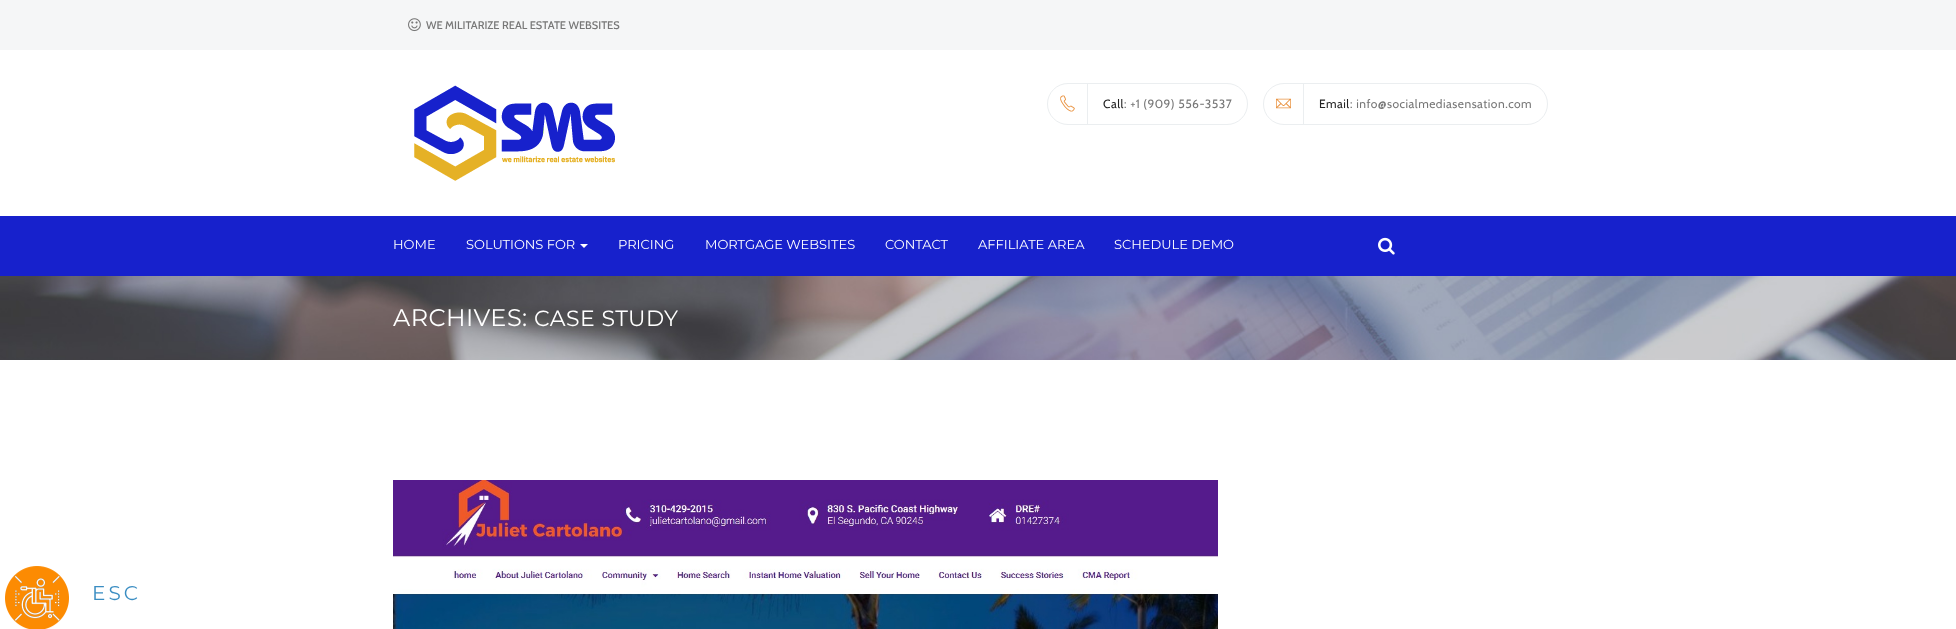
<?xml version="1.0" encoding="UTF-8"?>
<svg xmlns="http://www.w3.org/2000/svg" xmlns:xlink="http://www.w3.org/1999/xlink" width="1956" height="629">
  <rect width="100%" height="100%" fill="#ffffff" />
  <rect width="1956" height="50" fill="#f5f6f7" />
  <image x="408" y="18" width="13" height="14" xlink:href="image1.png" />
  <image x="414" y="85" width="201" height="96" xlink:href="image2.png" />
  <rect x="1047.5" y="83.5" width="200" height="41" rx="20.5" fill="none" stroke="#ebeef0" />
  <image x="1060" y="95" width="15" height="17" xlink:href="image3.png" />
  <rect x="1087" y="84" width="1" height="40" fill="#ebeef0" />
  <rect x="1263.5" y="83.5" width="284" height="41" rx="20.5" fill="none" stroke="#ebeef0" />
  <image x="1276" y="98" width="15" height="11" xlink:href="image4.png" />
  <rect x="1303" y="84" width="1" height="40" fill="#ebeef0" />
  <rect y="216" width="1956" height="60" fill="#1721cc" />
  <path d="M 580 244 h 8 l -4 4 z" fill="#ffffff" />
  <image x="1378" y="237" width="17" height="18" xlink:href="image5.png" />
  <image x="0" y="276" width="1956" height="84" xlink:href="image6.png" />
  <image x="5" y="566" width="64" height="63" xlink:href="image7.png" />
  <image x="393" y="480" width="825" height="149" xlink:href="image8.png" />
  <text x="426" y="29" style="font-family: Cabin; font-size: 11px; font-weight: 500; fill: #777777">WE MILITARIZE REAL ESTATE WEBSITES</text>
  <text x="1103" y="108" style="font-family: Cabin; font-size: 12px; letter-spacing: 0.5px; fill: #232323">Call</text>
  <text x="1124" y="108" style="font-family: Cabin; font-size: 12px; letter-spacing: 0.5px; fill: #777777">: +1 (909) 556-3537</text>
  <text x="1319" y="108" style="font-family: Cabin; font-size: 12px; letter-spacing: 0.5px; fill: #232323">Email</text>
  <text x="1350" y="108" style="font-family: Cabin; font-size: 12px; letter-spacing: 0.5px; fill: #777777">: info@socialmediasensation.com</text>
  <text x="393" y="249" style="font-family: Montserrat; font-size: 13px; fill: #ffffff">HOME</text>
  <text x="466" y="249" style="font-family: Montserrat; font-size: 13px; fill: #ffffff">SOLUTIONS FOR</text>
  <text x="618" y="249" style="font-family: Montserrat; font-size: 13px; fill: #ffffff">PRICING</text>
  <text x="705" y="249" style="font-family: Montserrat; font-size: 13px; fill: #ffffff">MORTGAGE WEBSITES</text>
  <text x="885" y="249" style="font-family: Montserrat; font-size: 13px; fill: #ffffff">CONTACT</text>
  <text x="978" y="249" style="font-family: Montserrat; font-size: 13px; fill: #ffffff">AFFILIATE AREA</text>
  <text x="1114" y="249" style="font-family: Montserrat; font-size: 13px; fill: #ffffff">SCHEDULE DEMO</text>
  <text x="393" y="326" style="font-family: Montserrat; font-size: 24px; letter-spacing: 0.5px; fill: #ffffff">ARCHIVES:</text>
  <text x="534" y="326" style="font-family: Montserrat; font-size: 22px; letter-spacing: 0.5px; fill: #ffffff">CASE STUDY</text>
  <text x="92" y="600" style="font-family: Montserrat; font-size: 20px; letter-spacing: 3px; fill: #3a8dc2">ESC</text>
</svg>
